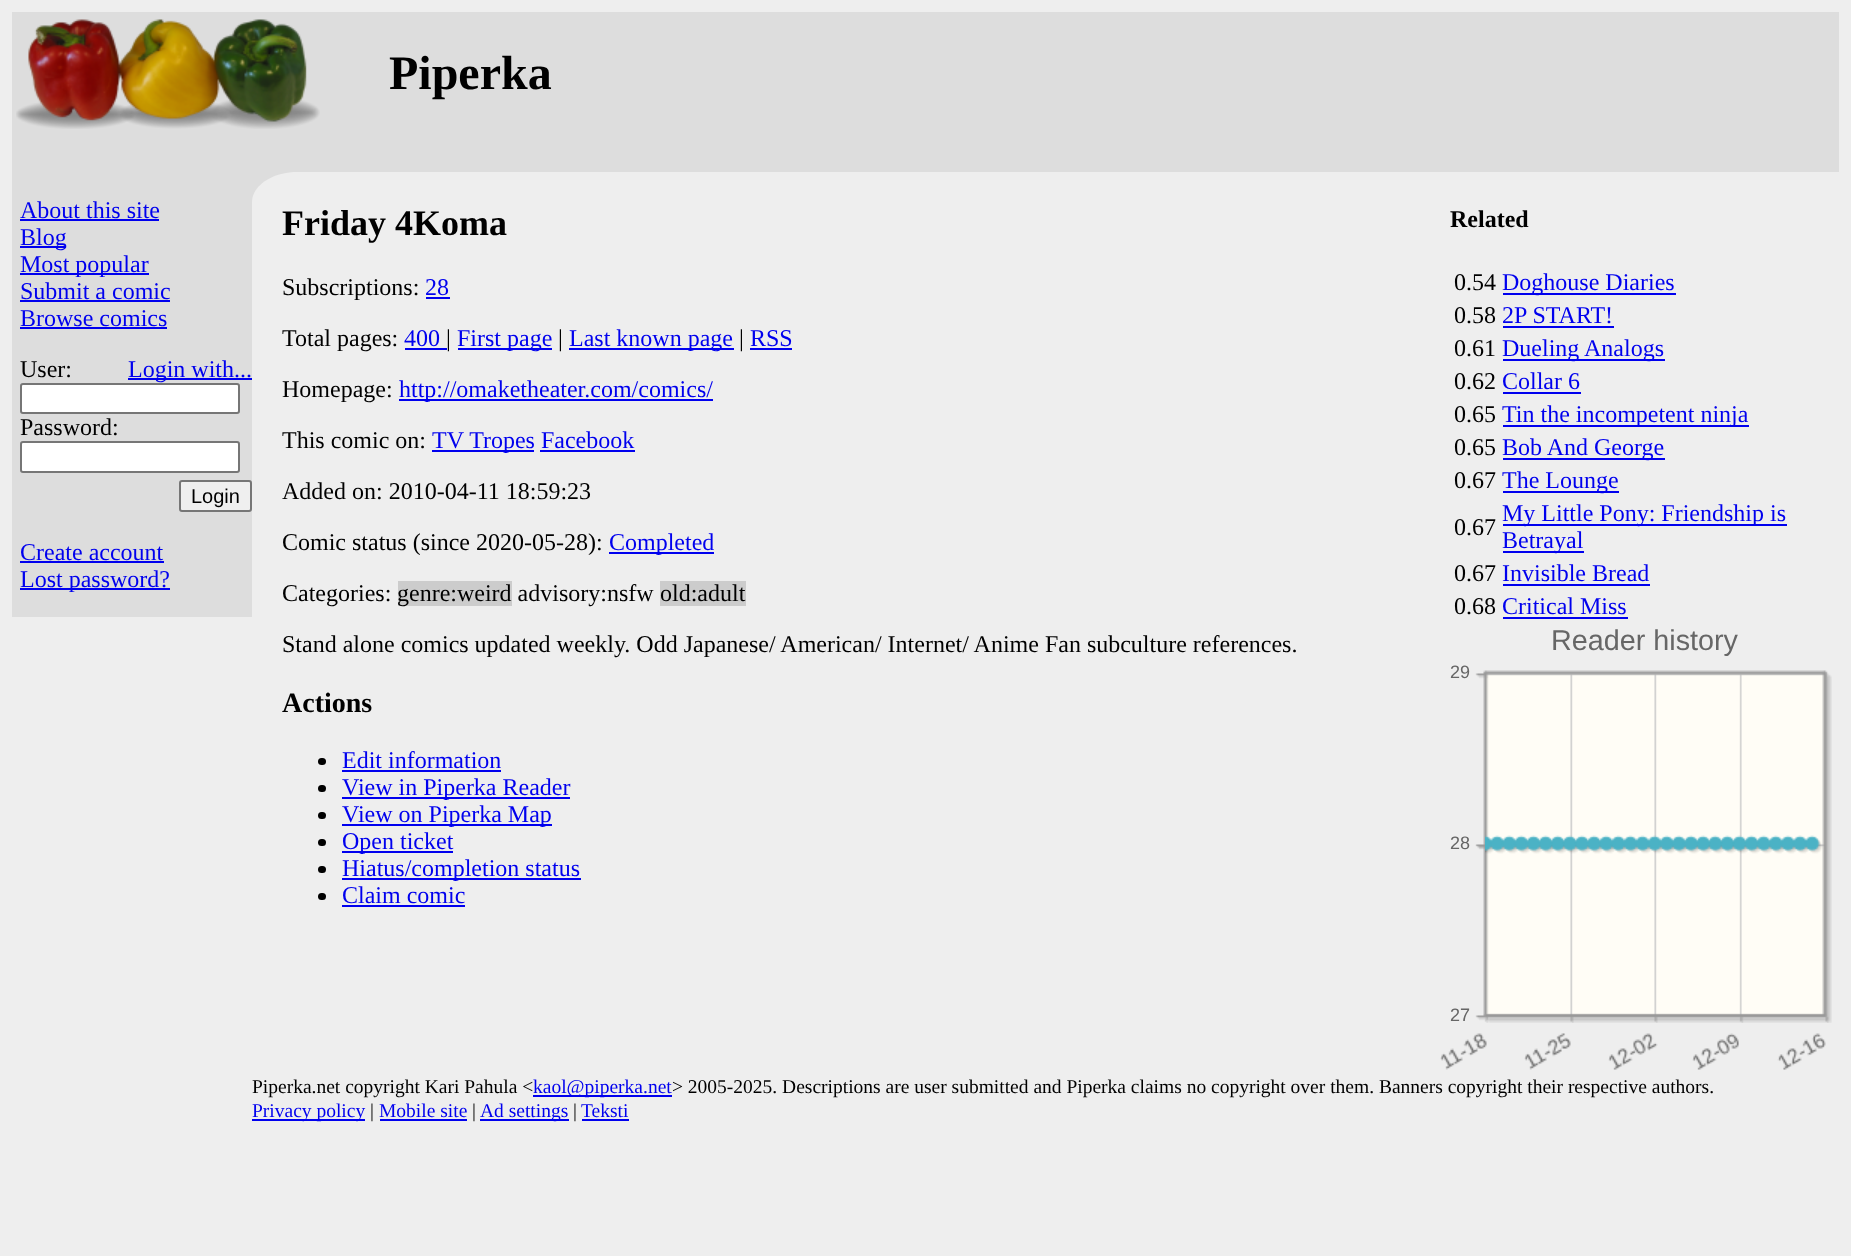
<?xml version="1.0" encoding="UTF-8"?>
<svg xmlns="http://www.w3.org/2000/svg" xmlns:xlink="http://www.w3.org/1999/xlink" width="1851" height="1256">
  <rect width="100%" height="100%" fill="#eeeeee" />
  <rect x="12" y="12" width="1827" height="161" fill="#dddddd" />
  <image x="16" y="19" width="304" height="110" xlink:href="image1.png" />
  <rect x="252" y="173" width="34" height="29" fill="#dddddd" />
  <rect x="12" y="173" width="240" height="444" fill="#dddddd" />
  <rect x="20" y="219" width="139" height="2" fill="#0000ee" />
  <rect x="20" y="246" width="46" height="2" fill="#0000ee" />
  <rect x="20" y="273" width="129" height="2" fill="#0000ee" />
  <rect x="20" y="300" width="150" height="2" fill="#0000ee" />
  <rect x="20" y="327" width="147" height="2" fill="#0000ee" />
  <rect x="128" y="378" width="124" height="2" fill="#0000ee" />
  <rect x="21" y="384" width="218" height="29" rx="2" fill="#ffffff" stroke="#767676" stroke-width="2" />
  <rect x="21" y="442" width="218" height="30" rx="2" fill="#ffffff" stroke="#767676" stroke-width="2" />
  <rect x="180" y="481" width="71" height="30" rx="2" fill="#efefef" stroke="#767676" stroke-width="2" />
  <rect x="20" y="561" width="144" height="2" fill="#0000ee" />
  <rect x="20" y="588" width="150" height="2" fill="#0000ee" />
  <path d="M 297 172 h 1542 v 737 h -1587 v -707 c 0 -16 20 -30 45 -30 z" fill="#eeeeee" />
  <rect x="1503" y="293" width="173" height="2" fill="#0000ee" />
  <rect x="1503" y="326" width="111" height="2" fill="#0000ee" />
  <rect x="1503" y="359" width="162" height="2" fill="#0000ee" />
  <rect x="1503" y="392" width="78" height="2" fill="#0000ee" />
  <rect x="1503" y="425" width="246" height="2" fill="#0000ee" />
  <rect x="1503" y="458" width="162" height="2" fill="#0000ee" />
  <rect x="1503" y="491" width="116" height="2" fill="#0000ee" />
  <rect x="1503" y="524" width="284" height="2" fill="#0000ee" />
  <rect x="1503" y="551" width="81" height="2" fill="#0000ee" />
  <rect x="1503" y="584" width="147" height="2" fill="#0000ee" />
  <rect x="1503" y="617" width="125" height="2" fill="#0000ee" />
  <rect x="426" y="297" width="24" height="2" fill="#0000ee" />
  <rect x="405" y="348" width="42" height="2" fill="#0000ee" />
  <rect x="458" y="348" width="94" height="2" fill="#0000ee" />
  <rect x="569" y="348" width="165" height="2" fill="#0000ee" />
  <rect x="750" y="348" width="42" height="2" fill="#0000ee" />
  <rect x="399" y="399" width="314" height="2" fill="#0000ee" />
  <rect x="432" y="450" width="102" height="2" fill="#0000ee" />
  <rect x="540" y="450" width="95" height="2" fill="#0000ee" />
  <rect x="609" y="552" width="105" height="2" fill="#0000ee" />
  <rect x="398" y="581" width="114" height="25" fill="#cccccc" />
  <rect x="660" y="581" width="86" height="25" fill="#cccccc" />
  <image x="1475" y="670" width="357" height="353" xlink:href="image2.png" />
  <image x="1485" y="835" width="338" height="19" xlink:href="image3.png" />
  <image x="1440" y="1033" width="47" height="37" xlink:href="image4.png" />
  <image x="1524" y="1033" width="47" height="37" xlink:href="image5.png" />
  <image x="1608" y="1033" width="50" height="37" xlink:href="image6.png" />
  <image x="1692" y="1033" width="47" height="37" xlink:href="image7.png" />
  <image x="1777" y="1033" width="49" height="37" xlink:href="image8.png" />
  <rect x="318" y="758" width="8" height="7" rx="3.5" fill="#000000" />
  <rect x="342" y="770" width="159" height="2" fill="#0000ee" />
  <rect x="318" y="785" width="8" height="7" rx="3.5" fill="#000000" />
  <rect x="342" y="797" width="228" height="2" fill="#0000ee" />
  <rect x="318" y="812" width="8" height="7" rx="3.5" fill="#000000" />
  <rect x="342" y="824" width="210" height="2" fill="#0000ee" />
  <rect x="318" y="839" width="8" height="7" rx="3.5" fill="#000000" />
  <rect x="342" y="851" width="111" height="2" fill="#0000ee" />
  <rect x="318" y="866" width="8" height="7" rx="3.5" fill="#000000" />
  <rect x="342" y="878" width="239" height="2" fill="#0000ee" />
  <rect x="318" y="893" width="8" height="7" rx="3.5" fill="#000000" />
  <rect x="342" y="905" width="123" height="2" fill="#0000ee" />
  <rect x="533" y="1095" width="139" height="2" fill="#0000ee" />
  <rect x="252" y="1119" width="113" height="2" fill="#0000ee" />
  <rect x="380" y="1119" width="87" height="2" fill="#0000ee" />
  <rect x="480" y="1119" width="89" height="2" fill="#0000ee" />
  <rect x="582" y="1119" width="47" height="2" fill="#0000ee" />
  <text x="389" y="89" style="font-family: Liberation Serif; font-size: 48px; font-weight: bold; fill: #000000">Piperka</text>
  <text x="20" y="218" style="font-family: Liberation Serif; font-size: 24px; fill: #0000ee">About this site</text>
  <text x="20" y="245" style="font-family: Liberation Serif; font-size: 24px; fill: #0000ee">Blog</text>
  <text x="20" y="272" style="font-family: Liberation Serif; font-size: 24px; fill: #0000ee">Most popular</text>
  <text x="20" y="299" style="font-family: Liberation Serif; font-size: 24px; fill: #0000ee">Submit a comic</text>
  <text x="20" y="326" style="font-family: Liberation Serif; font-size: 24px; fill: #0000ee">Browse comics</text>
  <text x="20" y="377" style="font-family: Liberation Serif; font-size: 24px; fill: #000000">User:</text>
  <text x="128" y="377" style="font-family: Liberation Serif; font-size: 24px; fill: #0000ee">Login with...</text>
  <text x="20" y="435" style="font-family: Liberation Serif; font-size: 24px; fill: #000000">Password:</text>
  <text x="191" y="503" style="font-family: Liberation Sans; font-size: 20px; fill: #000000">Login</text>
  <text x="20" y="560" style="font-family: Liberation Serif; font-size: 24px; fill: #0000ee">Create account</text>
  <text x="20" y="587" style="font-family: Liberation Serif; font-size: 24px; fill: #0000ee">Lost password?</text>
  <text x="282" y="235" style="font-family: Liberation Serif; font-size: 36px; font-weight: bold; fill: #000000">Friday 4Koma</text>
  <text x="1450" y="227" style="font-family: Liberation Serif; font-size: 24px; font-weight: bold; fill: #000000">Related</text>
  <text x="1454" y="290" style="font-family: Liberation Serif; font-size: 24px; fill: #000000">0.54</text>
  <text x="1502" y="290" style="font-family: Liberation Serif; font-size: 24px; fill: #0000ee">Doghouse Diaries</text>
  <text x="1454" y="323" style="font-family: Liberation Serif; font-size: 24px; fill: #000000">0.58</text>
  <text x="1502" y="323" style="font-family: Liberation Serif; font-size: 24px; fill: #0000ee">2P START!</text>
  <text x="1454" y="356" style="font-family: Liberation Serif; font-size: 24px; fill: #000000">0.61</text>
  <text x="1502" y="356" style="font-family: Liberation Serif; font-size: 24px; fill: #0000ee">Dueling Analogs</text>
  <text x="1454" y="389" style="font-family: Liberation Serif; font-size: 24px; fill: #000000">0.62</text>
  <text x="1502" y="389" style="font-family: Liberation Serif; font-size: 24px; fill: #0000ee">Collar 6</text>
  <text x="1454" y="422" style="font-family: Liberation Serif; font-size: 24px; fill: #000000">0.65</text>
  <text x="1502" y="422" style="font-family: Liberation Serif; font-size: 24px; fill: #0000ee">Tin the incompetent ninja</text>
  <text x="1454" y="455" style="font-family: Liberation Serif; font-size: 24px; fill: #000000">0.65</text>
  <text x="1502" y="455" style="font-family: Liberation Serif; font-size: 24px; fill: #0000ee">Bob And George</text>
  <text x="1454" y="488" style="font-family: Liberation Serif; font-size: 24px; fill: #000000">0.67</text>
  <text x="1502" y="488" style="font-family: Liberation Serif; font-size: 24px; fill: #0000ee">The Lounge</text>
  <text x="1454" y="535" style="font-family: Liberation Serif; font-size: 24px; fill: #000000">0.67</text>
  <text x="1502" y="521" style="font-family: Liberation Serif; font-size: 24px; fill: #0000ee">My Little Pony: Friendship is</text>
  <text x="1502" y="548" style="font-family: Liberation Serif; font-size: 24px; fill: #0000ee">Betrayal</text>
  <text x="1454" y="581" style="font-family: Liberation Serif; font-size: 24px; fill: #000000">0.67</text>
  <text x="1502" y="581" style="font-family: Liberation Serif; font-size: 24px; fill: #0000ee">Invisible Bread</text>
  <text x="1454" y="614" style="font-family: Liberation Serif; font-size: 24px; fill: #000000">0.68</text>
  <text x="1502" y="614" style="font-family: Liberation Serif; font-size: 24px; fill: #0000ee">Critical Miss</text>
  <text x="282" y="295" style="font-family: Liberation Serif; font-size: 24px; fill: #000000">Subscriptions:</text>
  <text x="425" y="295" style="font-family: Liberation Serif; font-size: 24px; fill: #0000ee">28</text>
  <text x="282" y="346" style="font-family: Liberation Serif; font-size: 24px; fill: #000000">Total pages:</text>
  <text x="404" y="346" style="font-family: Liberation Serif; font-size: 24px; fill: #0000ee">400</text>
  <text x="446" y="346" style="font-family: Liberation Serif; font-size: 24px; fill: #000000">|</text>
  <text x="457" y="346" style="font-family: Liberation Serif; font-size: 24px; fill: #0000ee">First page</text>
  <text x="558" y="346" style="font-family: Liberation Serif; font-size: 24px; fill: #000000">|</text>
  <text x="569" y="346" style="font-family: Liberation Serif; font-size: 24px; fill: #0000ee">Last known page</text>
  <text x="739" y="346" style="font-family: Liberation Serif; font-size: 24px; fill: #000000">|</text>
  <text x="750" y="346" style="font-family: Liberation Serif; font-size: 24px; fill: #0000ee">RSS</text>
  <text x="282" y="397" style="font-family: Liberation Serif; font-size: 24px; fill: #000000">Homepage:</text>
  <text x="399" y="397" style="font-family: Liberation Serif; font-size: 24px; fill: #0000ee">http://omaketheater.com/comics/</text>
  <text x="282" y="448" style="font-family: Liberation Serif; font-size: 24px; fill: #000000">This comic on:</text>
  <text x="432" y="448" style="font-family: Liberation Serif; font-size: 24px; fill: #0000ee">TV Tropes Facebook</text>
  <text x="282" y="499" style="font-family: Liberation Serif; font-size: 24px; fill: #000000">Added on: 2010-04-11 18:59:23</text>
  <text x="282" y="550" style="font-family: Liberation Serif; font-size: 24px; fill: #000000">Comic status (since 2020-05-28):</text>
  <text x="609" y="550" style="font-family: Liberation Serif; font-size: 24px; fill: #0000ee">Completed</text>
  <text x="282" y="601" style="font-family: Liberation Serif; font-size: 24px; fill: #000000">Categories:</text>
  <text x="397" y="601" style="font-family: Liberation Serif; font-size: 24px; fill: #000000">genre:weird advisory:nsfw</text>
  <text x="660" y="601" style="font-family: Liberation Serif; font-size: 24px; fill: #000000">old:adult</text>
  <text x="282" y="652" style="font-family: Liberation Serif; font-size: 24px; fill: #000000">Stand alone comics updated weekly. Odd Japanese/ American/ Internet/ Anime Fan subculture references.</text>
  <text x="1551" y="650" style="font-family: Liberation Sans; font-size: 28.75px; fill: #666666">Reader history</text>
  <text x="1450" y="678" style="font-family: Liberation Sans; font-size: 18px; fill: #666666">29</text>
  <text x="1450" y="849" style="font-family: Liberation Sans; font-size: 18px; fill: #666666">28</text>
  <text x="1450" y="1021" style="font-family: Liberation Sans; font-size: 18px; fill: #666666">27</text>
  <text x="282" y="712" style="font-family: Liberation Serif; font-size: 28px; font-weight: bold; fill: #000000">Actions</text>
  <text x="342" y="768" style="font-family: Liberation Serif; font-size: 24px; fill: #0000ee">Edit information</text>
  <text x="342" y="795" style="font-family: Liberation Serif; font-size: 24px; fill: #0000ee">View in Piperka Reader</text>
  <text x="342" y="822" style="font-family: Liberation Serif; font-size: 24px; fill: #0000ee">View on Piperka Map</text>
  <text x="342" y="849" style="font-family: Liberation Serif; font-size: 24px; fill: #0000ee">Open ticket</text>
  <text x="342" y="876" style="font-family: Liberation Serif; font-size: 24px; fill: #0000ee">Hiatus/completion status</text>
  <text x="342" y="903" style="font-family: Liberation Serif; font-size: 24px; fill: #0000ee">Claim comic</text>
  <text x="252" y="1093" style="font-family: Liberation Serif; font-size: 19.5px; fill: #000000">Piperka.net copyright Kari Pahula &lt;</text>
  <text x="533" y="1093" style="font-family: Liberation Serif; font-size: 19.5px; fill: #0000ee">kaol@piperka.net</text>
  <text x="672" y="1093" style="font-family: Liberation Serif; font-size: 19.5px; fill: #000000">&gt; 2005-2025. Descriptions are user submitted and Piperka claims no copyright over them. Banners copyright their respective authors.</text>
  <text x="252" y="1117" style="font-family: Liberation Serif; font-size: 19.5px; fill: #0000ee">Privacy policy</text>
  <text x="370" y="1117" style="font-family: Liberation Serif; font-size: 19.5px; fill: #000000">|</text>
  <text x="379" y="1117" style="font-family: Liberation Serif; font-size: 19.5px; fill: #0000ee">Mobile site</text>
  <text x="472" y="1117" style="font-family: Liberation Serif; font-size: 19.5px; fill: #000000">|</text>
  <text x="480" y="1117" style="font-family: Liberation Serif; font-size: 19.5px; fill: #0000ee">Ad settings</text>
  <text x="573" y="1117" style="font-family: Liberation Serif; font-size: 19.5px; fill: #000000">|</text>
  <text x="581" y="1117" style="font-family: Liberation Serif; font-size: 19.5px; fill: #0000ee">Teksti</text>
</svg>
